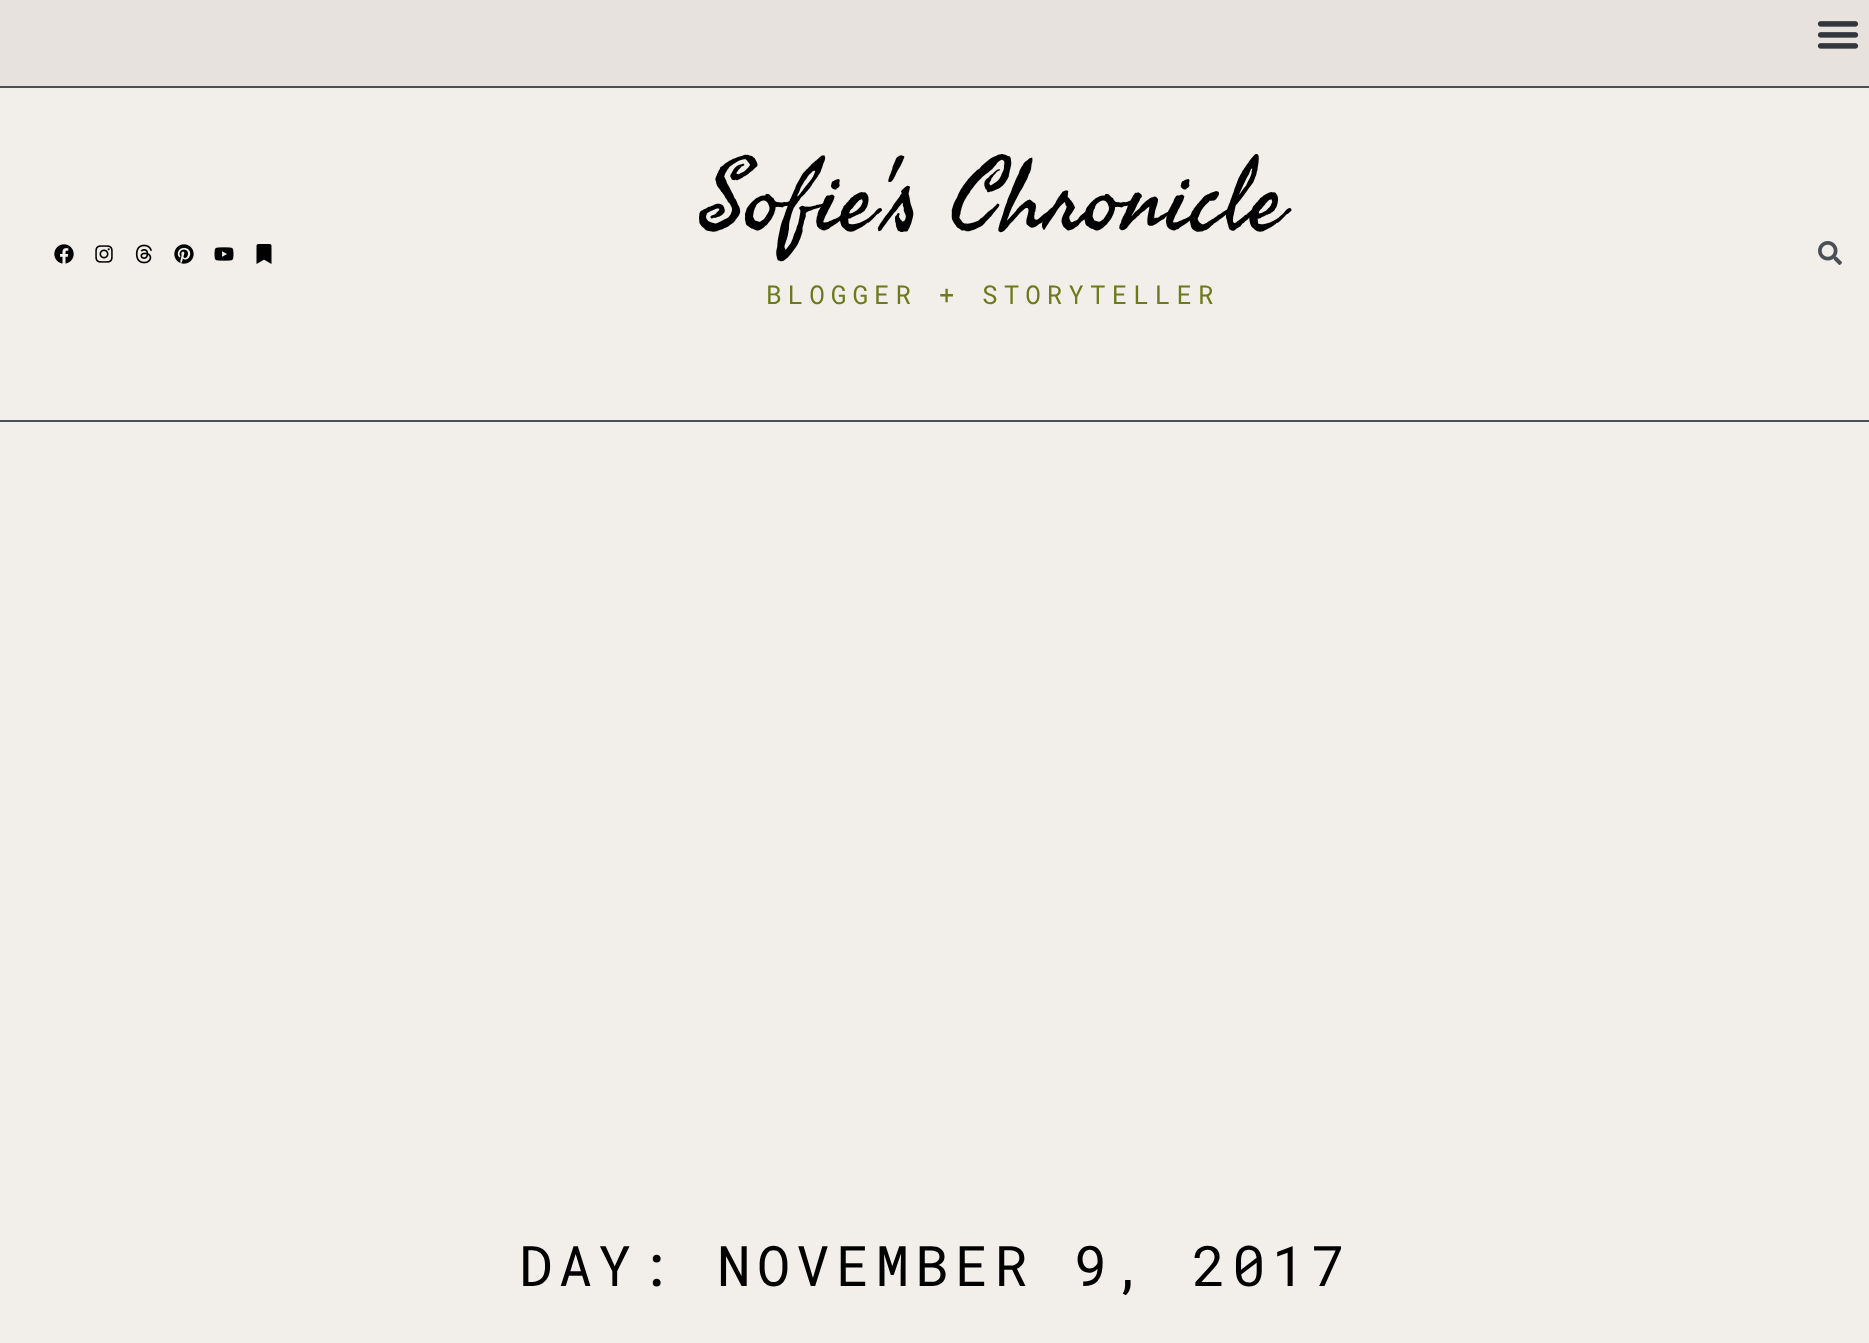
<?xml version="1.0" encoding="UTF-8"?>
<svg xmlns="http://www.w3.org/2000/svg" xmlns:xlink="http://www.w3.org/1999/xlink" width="1869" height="1343">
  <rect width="100%" height="100%" fill="#f2efea" />
  <rect width="1869" height="86" fill="#e7e2de" />
  <image x="1817" y="21" width="42" height="28" xlink:href="image1.png" />
  <rect y="86" width="1869" height="2" fill="#4b4f58" />
  <rect y="420" width="1869" height="2" fill="#4b4f58" />
  <image x="54" y="244" width="20" height="20" xlink:href="image2.png" />
  <image x="95" y="245" width="18" height="18" xlink:href="image3.png" />
  <image x="135" y="244" width="17" height="20" xlink:href="image4.png" />
  <image x="174" y="244" width="20" height="20" xlink:href="image5.png" />
  <image x="214" y="247" width="20" height="14" xlink:href="image6.png" />
  <image x="256" y="244" width="16" height="20" xlink:href="image7.png" />
  <image x="1818" y="241" width="24" height="24" xlink:href="image8.png" />
  <text x="700" y="228" style="font-family: Seaweed Script; font-size: 100px; fill: #000000">Sofie's Chronicle</text>
  <text x="766" y="304" style="font-family: Roboto Mono; font-size: 26px; letter-spacing: 6px; fill: #6b7a1a">BLOGGER + STORYTELLER</text>
  <text x="519" y="1286" style="font-family: Roboto Mono; font-size: 56px; letter-spacing: 6px; fill: #000000">DAY: NOVEMBER 9, 2017</text>
</svg>
